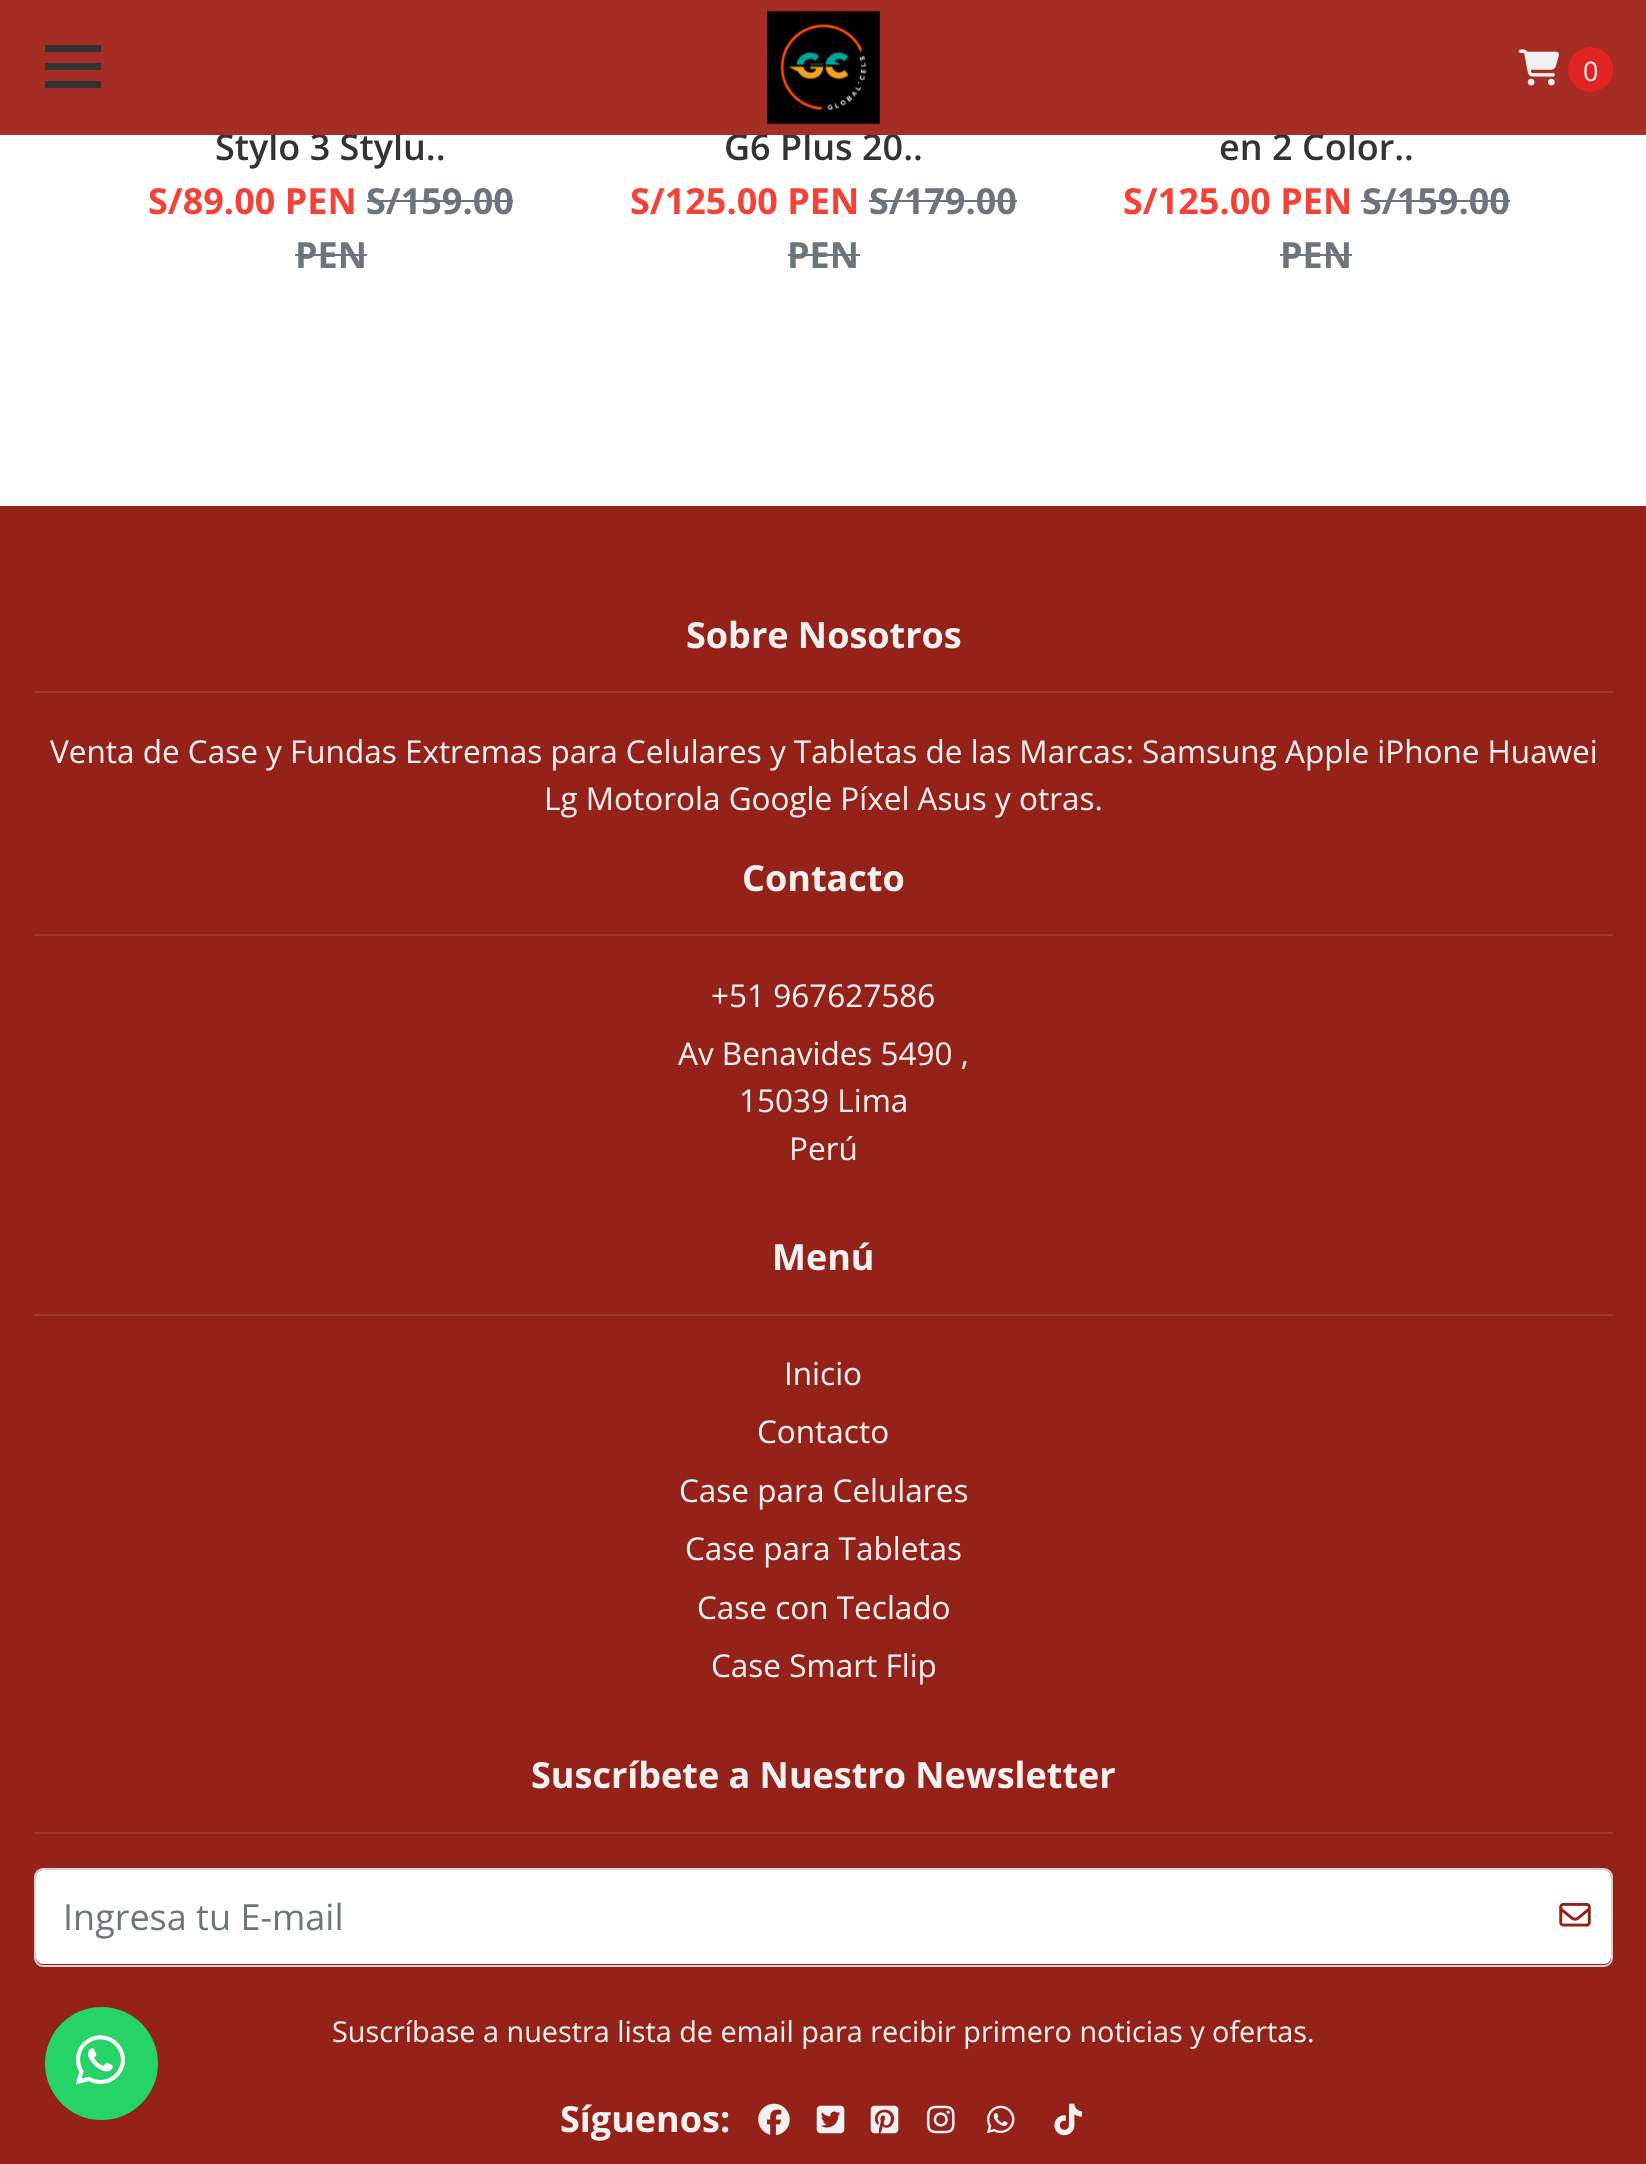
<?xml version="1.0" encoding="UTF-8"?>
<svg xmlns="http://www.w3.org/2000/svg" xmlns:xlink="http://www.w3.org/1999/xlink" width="1646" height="2164">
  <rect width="100%" height="100%" fill="#ffffff" />
  <rect x="367" y="200" width="146" height="2" fill="#6c757d" />
  <rect x="295" y="254" width="72" height="2" fill="#6c757d" />
  <rect x="869" y="200" width="148" height="2" fill="#6c757d" />
  <rect x="788" y="254" width="72" height="2" fill="#6c757d" />
  <rect x="1361" y="200" width="149" height="2" fill="#6c757d" />
  <rect x="1280" y="254" width="72" height="2" fill="#6c757d" />
  <rect y="506" width="1646" height="1658" fill="#942219" />
  <rect x="34" y="691" width="1579" height="2" fill="#9d372f" />
  <rect x="34" y="934" width="1579" height="2" fill="#9d372f" />
  <rect x="34" y="1314" width="1579" height="2" fill="#9d372f" />
  <rect x="34" y="1832" width="1579" height="2" fill="#9d372f" />
  <rect x="36" y="1870" width="1575" height="94" rx="7" fill="#ffffff" />
  <rect x="35" y="1869" width="1577" height="97" rx="8" fill="none" stroke="#ced4da" stroke-width="2" />
  <image x="1559" y="1902" width="32" height="25" xlink:href="image3.png" />
  <image x="758" y="2103" width="32" height="33" xlink:href="image4.png" />
  <image x="816" y="2105" width="29" height="29" xlink:href="image5.png" />
  <image x="870" y="2105" width="29" height="29" xlink:href="image6.png" />
  <image x="927" y="2105" width="28" height="29" xlink:href="image7.png" />
  <image x="987" y="2105" width="28" height="29" xlink:href="image8.png" />
  <image x="1054" y="2103" width="28" height="33" xlink:href="image9.png" />
  <circle cx="101.5" cy="2063.5" r="56.5" fill="#25d366" />
  <image x="75" y="2035" width="50" height="50" xlink:href="image10.png" />
  <text x="215" y="160" style="font-family: Open Sans; font-size: 36px; font-weight: 600; fill: #333333">Stylo 3 Stylu..</text>
  <text x="148" y="214" style="font-family: Open Sans; font-size: 36px; font-weight: bold; fill: #f44336">S/89.00 PEN</text>
  <text x="366" y="214" style="font-family: Open Sans; font-size: 36px; font-weight: bold; fill: #6c757d">S/159.00</text>
  <text x="295" y="268" style="font-family: Open Sans; font-size: 36px; font-weight: bold; fill: #6c757d">PEN</text>
  <text x="724" y="160" style="font-family: Open Sans; font-size: 36px; font-weight: 600; fill: #333333">G6 Plus 20..</text>
  <text x="630" y="214" style="font-family: Open Sans; font-size: 36px; font-weight: bold; fill: #f44336">S/125.00 PEN</text>
  <text x="869" y="214" style="font-family: Open Sans; font-size: 36px; font-weight: bold; fill: #6c757d">S/179.00</text>
  <text x="787" y="268" style="font-family: Open Sans; font-size: 36px; font-weight: bold; fill: #6c757d">PEN</text>
  <text x="1219" y="160" style="font-family: Open Sans; font-size: 36px; font-weight: 600; fill: #333333">en 2 Color..</text>
  <rect width="1646" height="135" fill="#a52d23" />
  <rect x="45" y="81" width="56" height="7" fill="#333333" />
  <rect x="45" y="63" width="56" height="7" fill="#333333" />
  <rect x="45" y="45" width="56" height="7" fill="#333333" />
  <image x="1518" y="49" width="41" height="37" xlink:href="image2.png" />
  <circle cx="1590.5" cy="69.5" r="22.5" fill="#e22323" />
  <text x="1583" y="81" style="font-family: Open Sans; font-size: 27px; fill: #f1f1f1">0</text>
  <image x="767" y="10" width="113" height="115" xlink:href="image1.png" />
  <text x="1123" y="214" style="font-family: Open Sans; font-size: 36px; font-weight: bold; fill: #f44336">S/125.00 PEN</text>
  <text x="1362" y="214" style="font-family: Open Sans; font-size: 36px; font-weight: bold; fill: #6c757d">S/159.00</text>
  <text x="1280" y="268" style="font-family: Open Sans; font-size: 36px; font-weight: bold; fill: #6c757d">PEN</text>
  <text x="686" y="648" style="font-family: Open Sans; font-size: 36px; font-weight: bold; fill: #f1f1f1">Sobre Nosotros</text>
  <text x="50" y="763" style="font-family: Open Sans; font-size: 31.5px; fill: #f1f1f1">Venta de Case y Fundas Extremas para Celulares y Tabletas de las Marcas: Samsung Apple iPhone Huawei</text>
  <text x="544" y="810" style="font-family: Open Sans; font-size: 31.5px; fill: #f1f1f1">Lg Motorola Google Píxel Asus y otras.</text>
  <text x="742" y="891" style="font-family: Open Sans; font-size: 36px; font-weight: bold; fill: #f1f1f1">Contacto</text>
  <text x="711" y="1007" style="font-family: Open Sans; font-size: 31.5px; fill: #f1f1f1">+51 967627586</text>
  <text x="678" y="1065" style="font-family: Open Sans; font-size: 31.5px; fill: #f1f1f1">Av Benavides 5490 ,</text>
  <text x="739" y="1112" style="font-family: Open Sans; font-size: 31.5px; fill: #f1f1f1">15039 Lima</text>
  <text x="789" y="1160" style="font-family: Open Sans; font-size: 31.5px; fill: #f1f1f1">Perú</text>
  <text x="772" y="1270" style="font-family: Open Sans; font-size: 36px; font-weight: bold; fill: #f1f1f1">Menú</text>
  <text x="784" y="1385" style="font-family: Open Sans; font-size: 31.5px; fill: #f1f1f1">Inicio</text>
  <text x="757" y="1443" style="font-family: Open Sans; font-size: 31.5px; fill: #f1f1f1">Contacto</text>
  <text x="679" y="1502" style="font-family: Open Sans; font-size: 31.5px; fill: #f1f1f1">Case para Celulares</text>
  <text x="685" y="1560" style="font-family: Open Sans; font-size: 31.5px; fill: #f1f1f1">Case para Tabletas</text>
  <text x="697" y="1619" style="font-family: Open Sans; font-size: 31.5px; fill: #f1f1f1">Case con Teclado</text>
  <text x="711" y="1677" style="font-family: Open Sans; font-size: 31.5px; fill: #f1f1f1">Case Smart Flip</text>
  <text x="531" y="1788" style="font-family: Open Sans; font-size: 36px; font-weight: bold; fill: #f1f1f1">Suscríbete a Nuestro Newsletter</text>
  <text x="63" y="1930" style="font-family: Open Sans; font-size: 36px; fill: #6c757d">Ingresa tu E-mail</text>
  <text x="332" y="2042" style="font-family: Open Sans; font-size: 28.8px; fill: #f1f1f1">Suscríbase a nuestra lista de email para recibir primero noticias y ofertas.</text>
  <text x="560" y="2132" style="font-family: Open Sans; font-size: 36px; font-weight: bold; fill: #f1f1f1">Síguenos:</text>
</svg>
